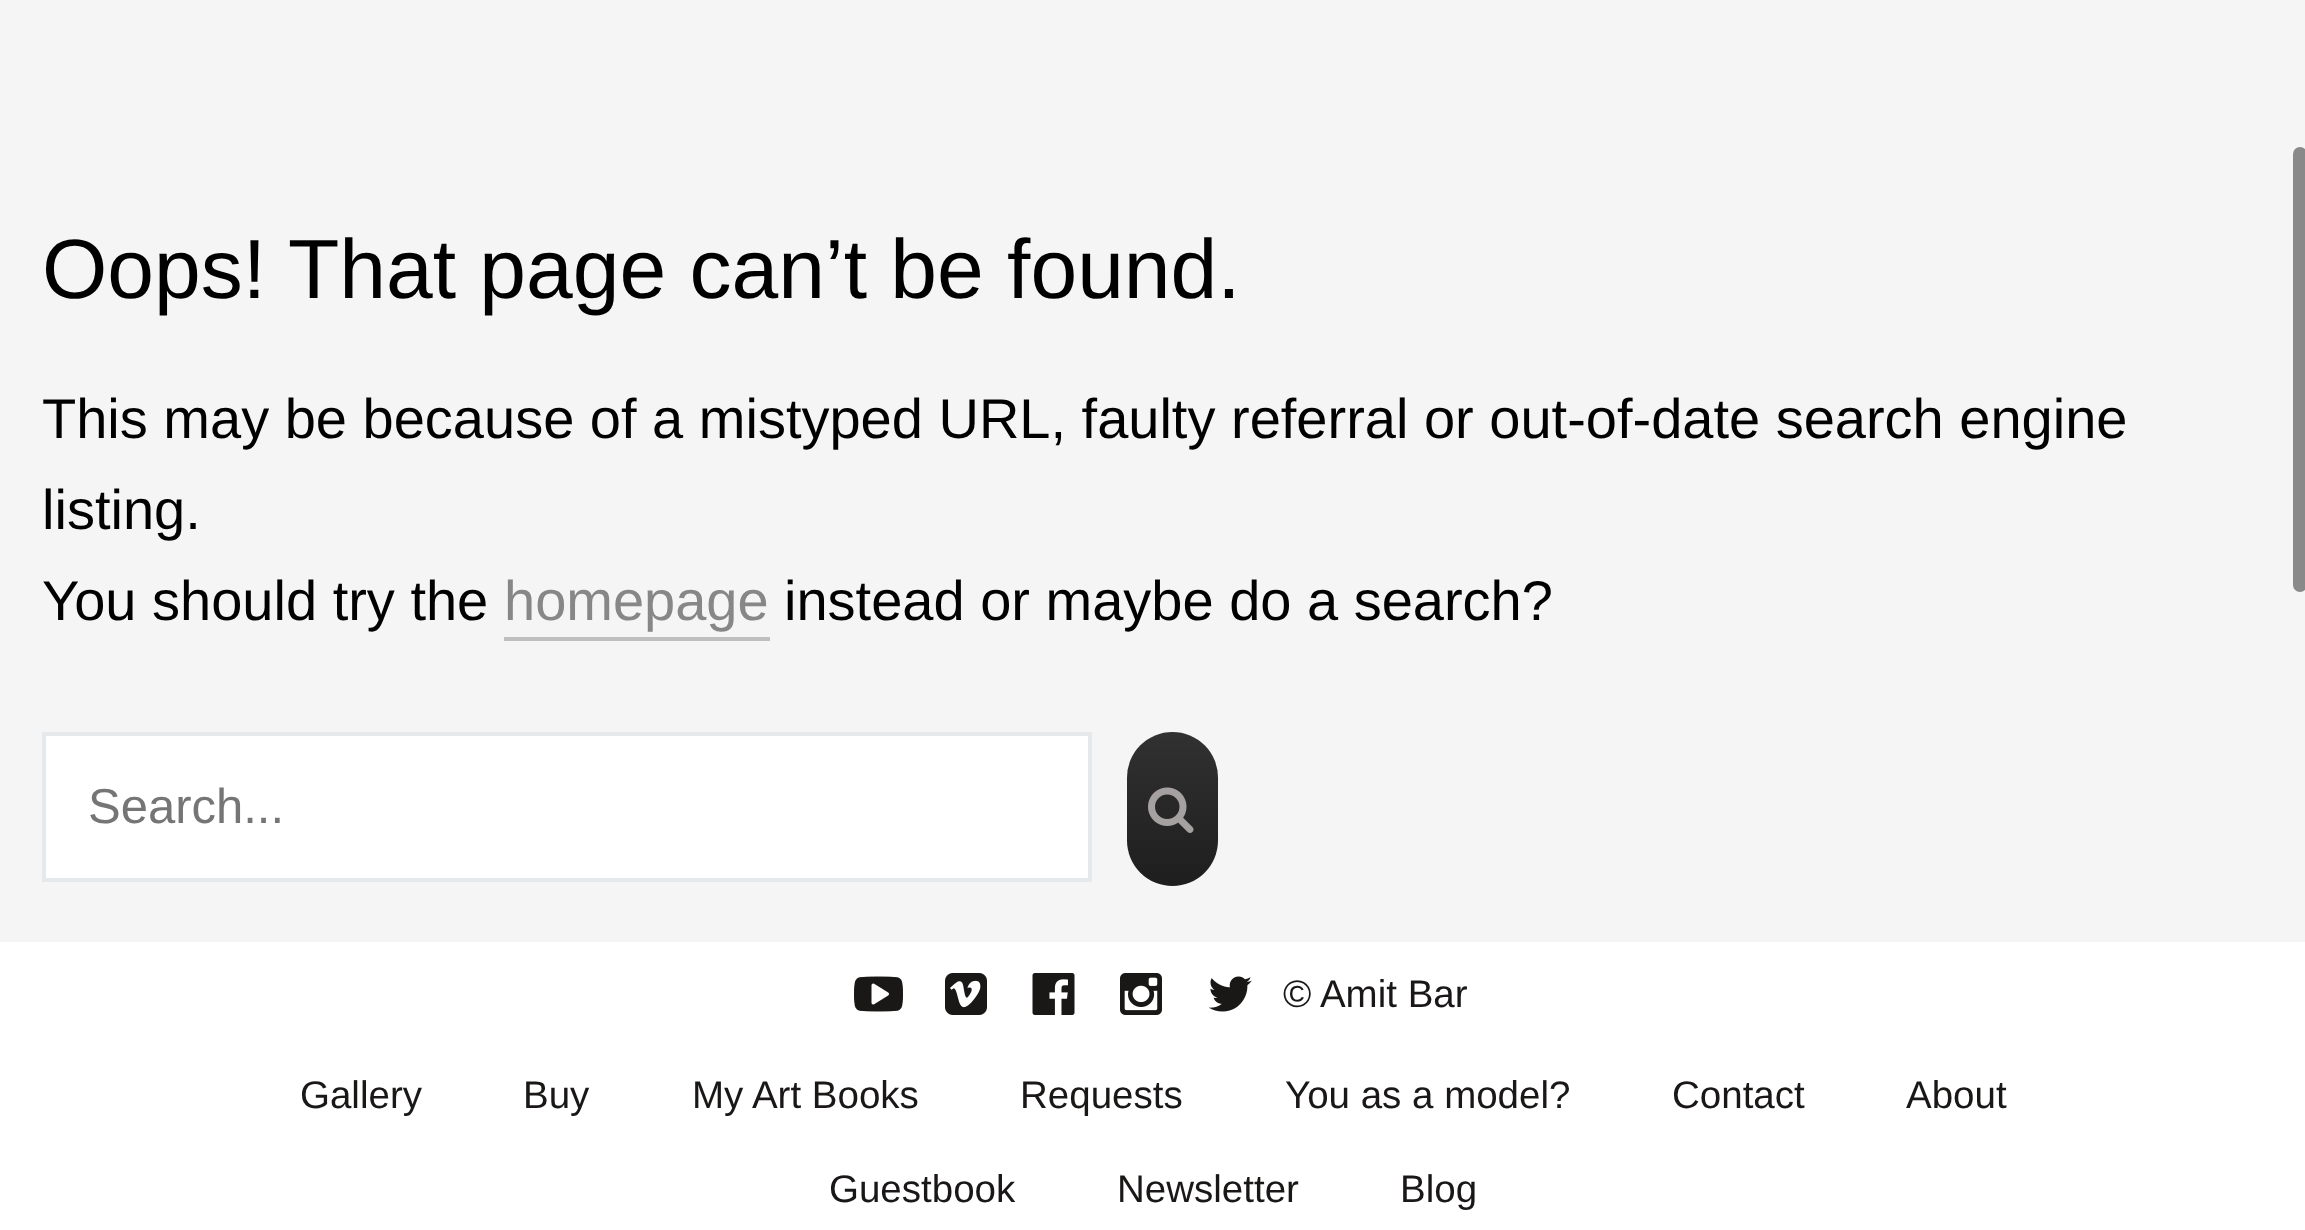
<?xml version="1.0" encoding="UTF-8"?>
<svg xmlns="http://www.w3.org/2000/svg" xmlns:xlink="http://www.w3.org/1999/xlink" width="2305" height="1230">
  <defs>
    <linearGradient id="g1" gradientUnits="userSpaceOnUse" x1="1173" y1="732" x2="1173" y2="886"><stop offset="0" stop-color="#313131" /><stop offset="1" stop-color="#1e1e1e" /></linearGradient>
  </defs>
  <rect width="100%" height="100%" fill="#f5f5f5" />
  <rect x="504" y="637" width="266" height="4" fill="#bfbfbf" />
  <rect x="44" y="734" width="1046" height="146" fill="#ffffff" stroke="#e5e9eb" stroke-width="4" />
  <rect x="1127" y="732" width="91" height="154" rx="45.5" fill="url(#g1)" />
  <image x="1148" y="787" width="46" height="46" xlink:href="image1.png" />
  <rect y="942" width="2305" height="288" fill="#ffffff" />
  <image x="854" y="976" width="49" height="36" xlink:href="image2.png" />
  <image x="945" y="973" width="42" height="42" xlink:href="image3.png" />
  <image x="1032" y="973" width="43" height="42" xlink:href="image4.png" />
  <image x="1120" y="973" width="42" height="42" xlink:href="image5.png" />
  <image x="1208" y="976" width="44" height="36" xlink:href="image6.png" />
  <rect x="2293" y="147" width="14" height="445" rx="7" fill="#898989" />
  <text x="42" y="298" style="font-family: Liberation Sans; font-size: 84px; fill: #000000">Oops! That page can’t be found.</text>
  <text x="42" y="438" style="font-family: Liberation Sans; font-size: 56px; fill: #000000">This may be because of a mistyped URL, faulty referral or out-of-date search engine</text>
  <text x="42" y="529" style="font-family: Liberation Sans; font-size: 56px; fill: #000000">listing.</text>
  <text x="42" y="620" style="font-family: Liberation Sans; font-size: 56px; fill: #000000">You should try the</text>
  <text x="504" y="620" style="font-family: Liberation Sans; font-size: 56px; fill: #878787">homepage</text>
  <text x="784" y="620" style="font-family: Liberation Sans; font-size: 56px; fill: #000000">instead or maybe do a search?</text>
  <text x="88" y="823" style="font-family: Liberation Sans; font-size: 49px; fill: #757575">Search...</text>
  <text x="1283" y="1007" style="font-family: Liberation Sans; font-size: 38.5px; fill: #1a1717">© Amit Bar</text>
  <text x="300" y="1108" style="font-family: Liberation Sans; font-size: 38.5px; fill: #1a1717">Gallery</text>
  <text x="523" y="1108" style="font-family: Liberation Sans; font-size: 38.5px; fill: #1a1717">Buy</text>
  <text x="692" y="1108" style="font-family: Liberation Sans; font-size: 38.5px; fill: #1a1717">My Art Books</text>
  <text x="1020" y="1108" style="font-family: Liberation Sans; font-size: 38.5px; fill: #1a1717">Requests</text>
  <text x="1285" y="1108" style="font-family: Liberation Sans; font-size: 38.5px; fill: #1a1717">You as a model?</text>
  <text x="1672" y="1108" style="font-family: Liberation Sans; font-size: 38.5px; fill: #1a1717">Contact</text>
  <text x="1906" y="1108" style="font-family: Liberation Sans; font-size: 38.5px; fill: #1a1717">About</text>
  <text x="829" y="1202" style="font-family: Liberation Sans; font-size: 38.5px; fill: #1a1717">Guestbook</text>
  <text x="1117" y="1202" style="font-family: Liberation Sans; font-size: 38.5px; fill: #1a1717">Newsletter</text>
  <text x="1400" y="1202" style="font-family: Liberation Sans; font-size: 38.5px; fill: #1a1717">Blog</text>
</svg>
